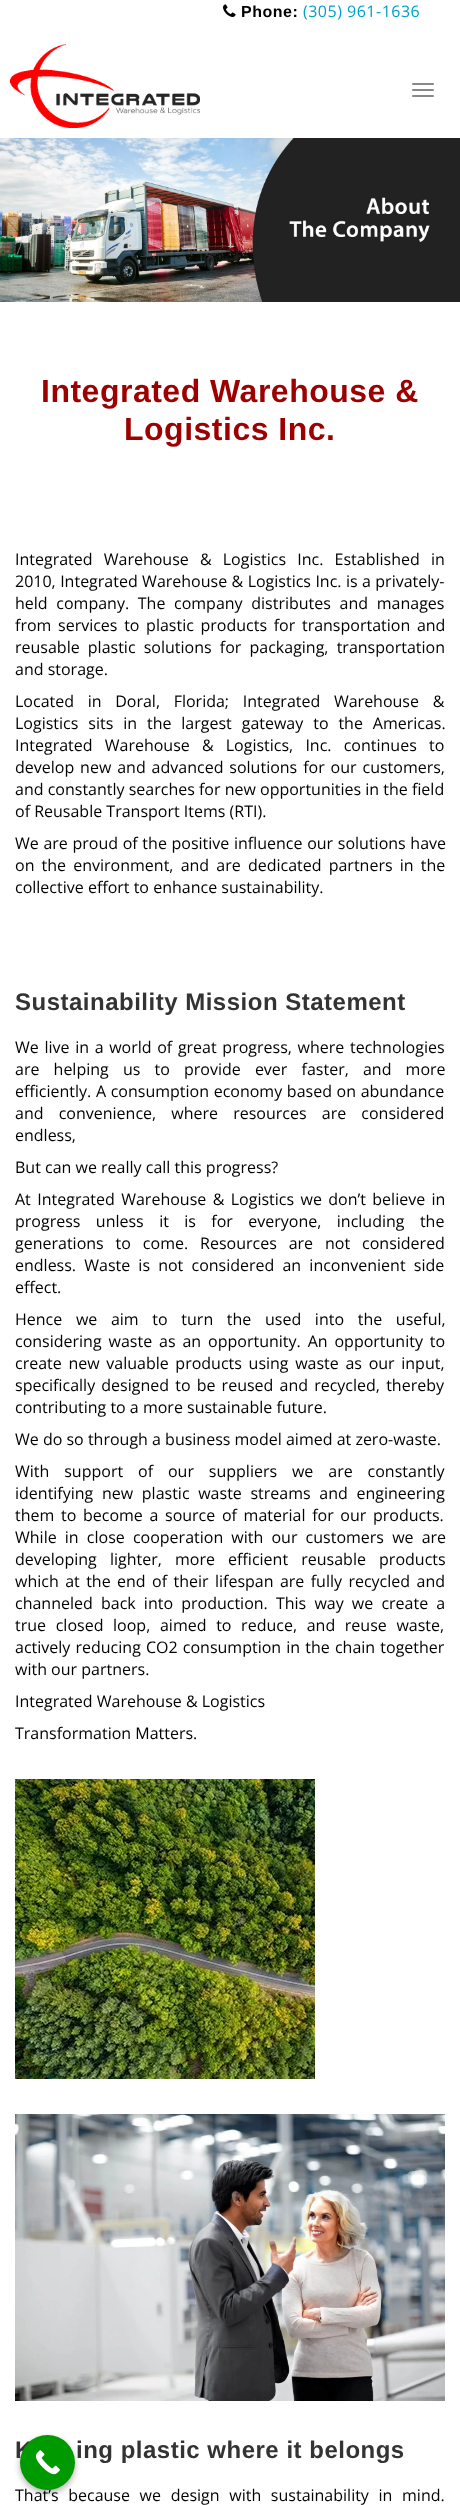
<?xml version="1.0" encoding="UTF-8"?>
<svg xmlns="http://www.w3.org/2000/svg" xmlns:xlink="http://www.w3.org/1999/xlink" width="460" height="2505">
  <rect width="100%" height="100%" fill="#ffffff" />
  <image x="223" y="4" width="13" height="13" xlink:href="image1.png" />
  <image x="10" y="44" width="190" height="84" xlink:href="image2.png" />
  <rect x="412" y="83" width="22" height="2" rx="1" fill="#888888" />
  <rect x="412" y="89" width="22" height="2" rx="1" fill="#888888" />
  <rect x="412" y="95" width="22" height="2" rx="1" fill="#888888" />
  <image x="0" y="138" width="460" height="164" xlink:href="image3.png" />
  <image x="15" y="1779" width="300" height="300" xlink:href="image4.png" />
  <image x="15" y="2114" width="430" height="287" xlink:href="image5.png" />
  <rect x="20" y="2438" width="55" height="55" rx="27.5" fill="#000000" fill-opacity="0.3" filter="blur(3px)" />
  <text x="241" y="17" style="font-family: Liberation Sans; font-size: 16px; font-weight: bold; letter-spacing: 0.5px; fill: #000000">Phone:</text>
  <text x="303" y="17" style="font-family: Open Sans; font-size: 16px; letter-spacing: 0.5px; fill: #00a3c8">(305) 961-1636</text>
  <text x="41" y="402" style="font-family: Liberation Sans; font-size: 32px; font-weight: bold; letter-spacing: 0.5px; fill: #9d0000">Integrated Warehouse &amp;</text>
  <text x="124" y="440" style="font-family: Liberation Sans; font-size: 32px; font-weight: bold; letter-spacing: 0.5px; fill: #9d0000">Logistics Inc.</text>
  <text x="15" y="565" word-spacing="7" style="font-family: Open Sans; font-size: 16px; fill: #000000">Integrated Warehouse &amp; Logistics Inc. Established in</text>
  <text x="15" y="587" word-spacing="0.25" style="font-family: Open Sans; font-size: 16px; fill: #000000">2010, Integrated Warehouse &amp; Logistics Inc. is a privately-</text>
  <text x="15" y="609" word-spacing="4.5" style="font-family: Open Sans; font-size: 16px; fill: #000000">held company. The company distributes and manages</text>
  <text x="15" y="631" word-spacing="2.5" style="font-family: Open Sans; font-size: 16px; fill: #000000">from services to plastic products for transportation and</text>
  <text x="15" y="653" word-spacing="4" style="font-family: Open Sans; font-size: 16px; fill: #000000">reusable plastic solutions for packaging, transportation</text>
  <text x="15" y="675" style="font-family: Open Sans; font-size: 16px; fill: #000000">and storage.</text>
  <text x="15" y="707" word-spacing="9.5" style="font-family: Open Sans; font-size: 16px; fill: #000000">Located in Doral, Florida; Integrated Warehouse &amp;</text>
  <text x="15" y="729" word-spacing="5.75" style="font-family: Open Sans; font-size: 16px; fill: #000000">Logistics sits in the largest gateway to the Americas.</text>
  <text x="15" y="751" word-spacing="8" style="font-family: Open Sans; font-size: 16px; fill: #000000">Integrated Warehouse &amp; Logistics, Inc. continues to</text>
  <text x="15" y="773" word-spacing="1.75" style="font-family: Open Sans; font-size: 16px; fill: #000000">develop new and advanced solutions for our customers,</text>
  <text x="15" y="795" style="font-family: Open Sans; font-size: 16px; fill: #000000">and constantly searches for new opportunities in the field</text>
  <text x="15" y="817" style="font-family: Open Sans; font-size: 16px; fill: #000000">of Reusable Transport Items (RTI).</text>
  <text x="15" y="849" word-spacing="0.5" style="font-family: Open Sans; font-size: 16px; fill: #000000">We are proud of the positive influence our solutions have</text>
  <text x="15" y="871" word-spacing="3" style="font-family: Open Sans; font-size: 16px; fill: #000000">on the environment, and are dedicated partners in the</text>
  <text x="15" y="893" style="font-family: Open Sans; font-size: 16px; fill: #000000">collective effort to enhance sustainability.</text>
  <text x="15" y="1010" style="font-family: Liberation Sans; font-size: 24px; font-weight: bold; letter-spacing: 0.5px; fill: #333333">Sustainability Mission Statement</text>
  <text x="15" y="1053" word-spacing="1.5" style="font-family: Open Sans; font-size: 16px; fill: #000000">We live in a world of great progress, where technologies</text>
  <text x="15" y="1075" word-spacing="10" style="font-family: Open Sans; font-size: 16px; fill: #000000">are helping us to provide ever faster, and more</text>
  <text x="15" y="1097" word-spacing="0.5" style="font-family: Open Sans; font-size: 16px; fill: #000000">efficiently. A consumption economy based on abundance</text>
  <text x="15" y="1119" word-spacing="11" style="font-family: Open Sans; font-size: 16px; fill: #000000">and convenience, where resources are considered</text>
  <text x="15" y="1141" style="font-family: Open Sans; font-size: 16px; fill: #000000">endless,</text>
  <text x="15" y="1173" style="font-family: Open Sans; font-size: 16px; fill: #000000">But can we really call this progress?</text>
  <text x="15" y="1205" word-spacing="2.25" style="font-family: Open Sans; font-size: 16px; fill: #000000">At Integrated Warehouse &amp; Logistics we don’t believe in</text>
  <text x="15" y="1227" word-spacing="11.25" style="font-family: Open Sans; font-size: 16px; fill: #000000">progress unless it is for everyone, including the</text>
  <text x="15" y="1249" word-spacing="7.75" style="font-family: Open Sans; font-size: 16px; fill: #000000">generations to come. Resources are not considered</text>
  <text x="15" y="1271" word-spacing="4" style="font-family: Open Sans; font-size: 16px; fill: #000000">endless. Waste is not considered an inconvenient side</text>
  <text x="15" y="1293" style="font-family: Open Sans; font-size: 16px; fill: #000000">effect.</text>
  <text x="15" y="1325" word-spacing="9.5" style="font-family: Open Sans; font-size: 16px; fill: #000000">Hence we aim to turn the used into the useful,</text>
  <text x="15" y="1347" word-spacing="2.75" style="font-family: Open Sans; font-size: 16px; fill: #000000">considering waste as an opportunity. An opportunity to</text>
  <text x="15" y="1369" word-spacing="2.5" style="font-family: Open Sans; font-size: 16px; fill: #000000">create new valuable products using waste as our input,</text>
  <text x="15" y="1391" word-spacing="2" style="font-family: Open Sans; font-size: 16px; fill: #000000">specifically designed to be reused and recycled, thereby</text>
  <text x="15" y="1413" style="font-family: Open Sans; font-size: 16px; fill: #000000">contributing to a more sustainable future.</text>
  <text x="15" y="1445" style="font-family: Open Sans; font-size: 16px; fill: #000000">We do so through a business model aimed at zero-waste.</text>
  <text x="15" y="1477" word-spacing="10.75" style="font-family: Open Sans; font-size: 16px; fill: #000000">With support of our suppliers we are constantly</text>
  <text x="15" y="1499" word-spacing="4.5" style="font-family: Open Sans; font-size: 16px; fill: #000000">identifying new plastic waste streams and engineering</text>
  <text x="15" y="1521" word-spacing="2.5" style="font-family: Open Sans; font-size: 16px; fill: #000000">them to become a source of material for our products.</text>
  <text x="15" y="1543" word-spacing="4" style="font-family: Open Sans; font-size: 16px; fill: #000000">While in close cooperation with our customers we are</text>
  <text x="15" y="1565" word-spacing="9" style="font-family: Open Sans; font-size: 16px; fill: #000000">developing lighter, more efficient reusable products</text>
  <text x="15" y="1587" word-spacing="2.25" style="font-family: Open Sans; font-size: 16px; fill: #000000">which at the end of their lifespan are fully recycled and</text>
  <text x="15" y="1609" word-spacing="4" style="font-family: Open Sans; font-size: 16px; fill: #000000">channeled back into production. This way we create a</text>
  <text x="15" y="1631" word-spacing="5.5" style="font-family: Open Sans; font-size: 16px; fill: #000000">true closed loop, aimed to reduce, and reuse waste,</text>
  <text x="15" y="1653" word-spacing="1" style="font-family: Open Sans; font-size: 16px; fill: #000000">actively reducing CO2 consumption in the chain together</text>
  <text x="15" y="1675" style="font-family: Open Sans; font-size: 16px; fill: #000000">with our partners.</text>
  <text x="15" y="1707" style="font-family: Open Sans; font-size: 16px; fill: #000000">Integrated Warehouse &amp; Logistics</text>
  <text x="15" y="1739" style="font-family: Open Sans; font-size: 16px; fill: #000000">Transformation Matters.</text>
  <text x="15" y="2458" style="font-family: Liberation Sans; font-size: 24px; font-weight: bold; letter-spacing: 0.5px; fill: #333333">K</text>
  <text x="76" y="2458" style="font-family: Liberation Sans; font-size: 24px; font-weight: bold; letter-spacing: 0.5px; fill: #333333">ing plastic where it belongs</text>
  <text x="15" y="2501" word-spacing="5.5" style="font-family: Open Sans; font-size: 16px; fill: #000000">That’s because we design with sustainability in mind.</text>
  <circle cx="47.5" cy="2462.5" r="27.5" fill="#009900" />
  <image x="35" y="2450" width="25" height="25" xlink:href="image6.png" />
</svg>
